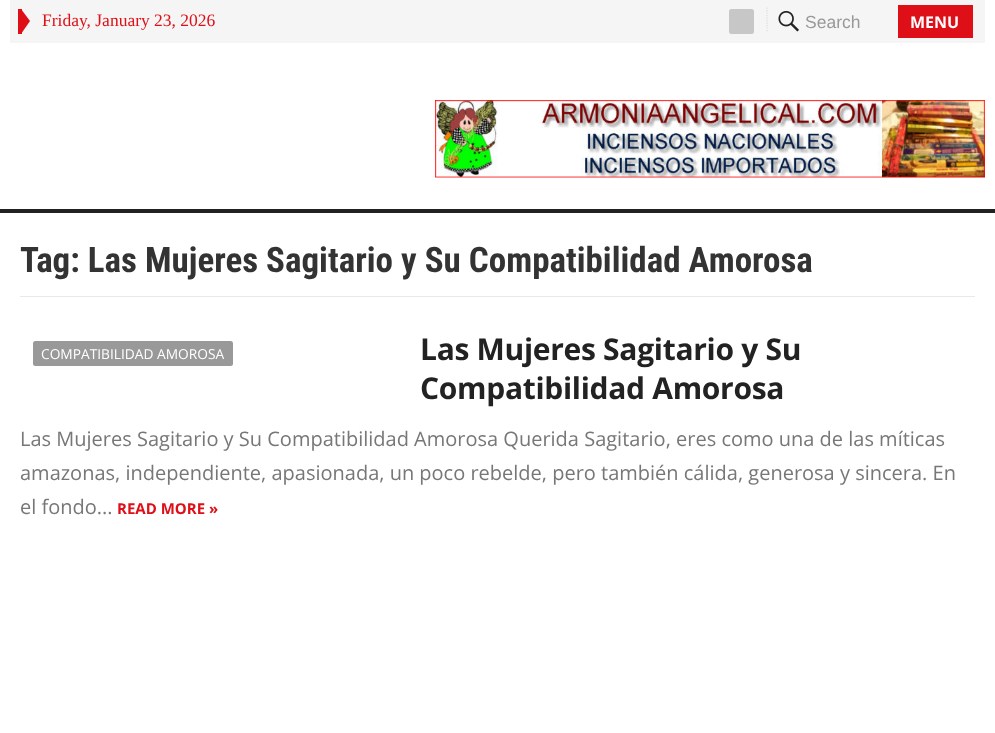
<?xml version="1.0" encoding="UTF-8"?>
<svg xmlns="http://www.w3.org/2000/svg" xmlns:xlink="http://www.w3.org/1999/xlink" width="995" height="733">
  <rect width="100%" height="100%" fill="#ffffff" />
  <rect y="209" width="995" height="4" fill="#222222" />
  <rect x="10" width="975" height="43" fill="#f5f5f5" />
  <path d="M 21 34 v -25 l 9 12 z" fill="#de0f17" />
  <rect x="18" y="9" width="4" height="25" fill="#de0f17" />
  <rect x="729" y="9" width="25" height="25" rx="2.5" fill="#c7c7c7" />
  <path d="M 767 7.5 v 25" fill="none" stroke="#dddddd" stroke-width="1.2" stroke-dasharray="1.25 1.25" />
  <image x="778" y="10" width="21" height="22" xlink:href="image1.png" />
  <rect x="898" y="5" width="75" height="33" fill="#de0f17" />
  <image x="435" y="100" width="550" height="78" xlink:href="image2.png" />
  <rect x="20" y="296" width="955" height="1" fill="#e9e9e9" />
  <rect x="33" y="341" width="200" height="25" rx="2.5" fill="#999999" />
  <text x="42" y="26" style="font-family: Liberation Serif; font-size: 17.5px; fill: #de0f17">Friday, January 23, 2026</text>
  <text x="805" y="28" style="font-family: Liberation Sans; font-size: 17.5px; fill: #999999">Search</text>
  <text x="910" y="28" style="font-family: Open Sans; font-size: 16px; font-weight: bold; fill: #ffffff">MENU</text>
  <text x="20" y="272" style="font-family: Roboto Condensed; font-size: 35px; font-weight: bold; fill: #333333">Tag: Las Mujeres Sagitario y Su Compatibilidad Amorosa</text>
  <text x="41" y="359" style="font-family: Open Sans; font-size: 13.75px; fill: #ffffff">COMPATIBILIDAD AMOROSA</text>
  <text x="420" y="360" style="font-family: Open Sans; font-size: 30px; font-weight: bold; letter-spacing: -0.3px; fill: #222222">Las Mujeres Sagitario y Su</text>
  <text x="420" y="399" style="font-family: Open Sans; font-size: 30px; font-weight: bold; letter-spacing: -0.3px; fill: #222222">Compatibilidad Amorosa</text>
  <text x="20" y="446" style="font-family: Open Sans; font-size: 20px; fill: #777777">Las Mujeres Sagitario y Su Compatibilidad Amorosa Querida Sagitario, eres como una de las míticas</text>
  <text x="20" y="480" style="font-family: Open Sans; font-size: 20px; fill: #777777">amazonas, independiente, apasionada, un poco rebelde, pero también cálida, generosa y sincera. En</text>
  <text x="20" y="514" style="font-family: Open Sans; font-size: 20px; fill: #777777">el fondo...</text>
  <text x="117" y="514" style="font-family: Open Sans; font-size: 15px; font-weight: bold; fill: #de0f17">READ MORE »</text>
</svg>
